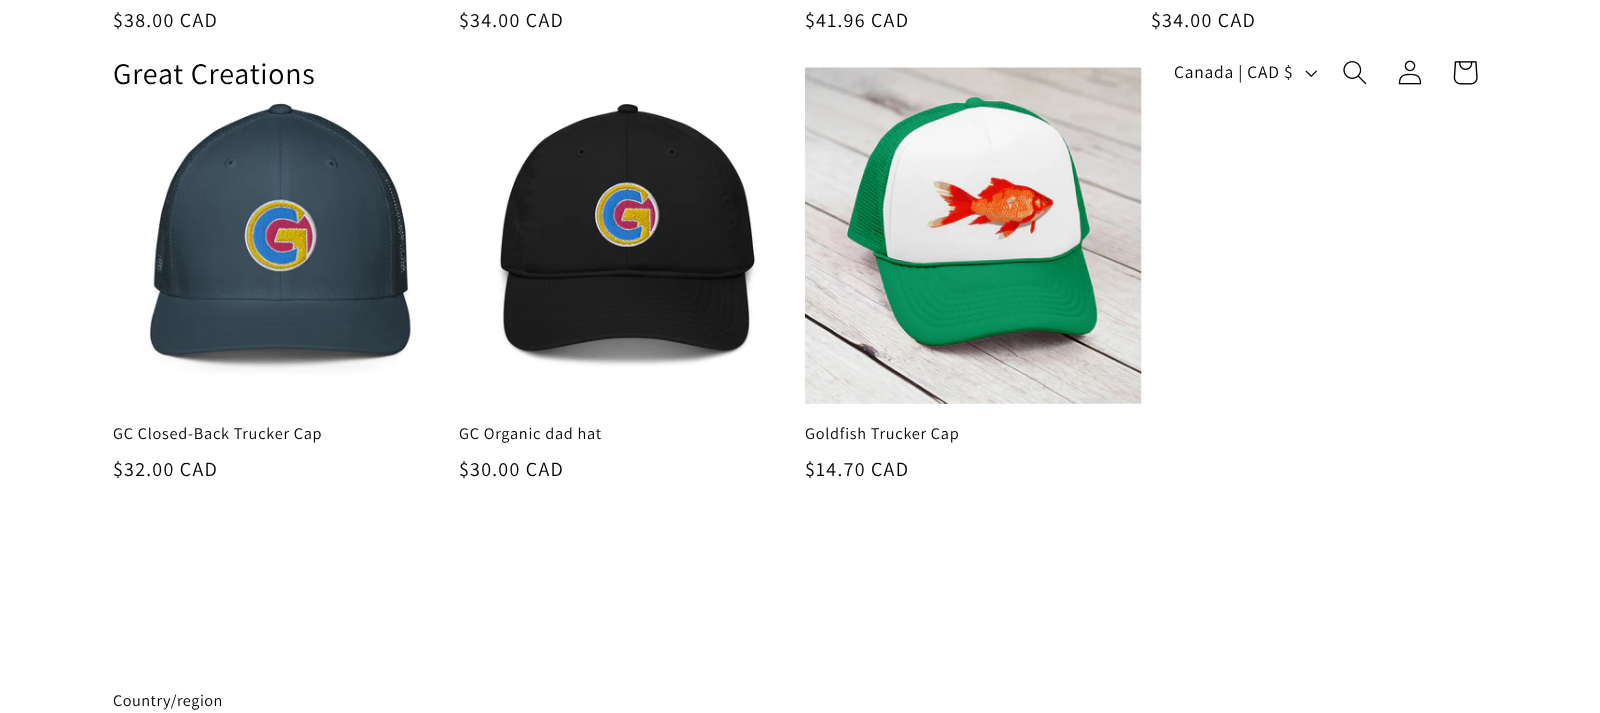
<?xml version="1.0" encoding="UTF-8"?>
<svg xmlns="http://www.w3.org/2000/svg" xmlns:xlink="http://www.w3.org/1999/xlink" width="1600" height="713">
  <rect width="100%" height="100%" fill="#ffffff" />
  <image x="149" y="101" width="262" height="273" xlink:href="image1.png" />
  <image x="498" y="102" width="259" height="265" xlink:href="image2.png" />
  <image x="805" y="67" width="337" height="337" xlink:href="image3.png" />
  <image x="1305" y="70" width="12" height="7" xlink:href="image4.png" />
  <image x="1343" y="61" width="24" height="24" xlink:href="image5.png" />
  <image x="1398" y="60" width="24" height="25" xlink:href="image6.png" />
  <image x="1453" y="61" width="25" height="24" xlink:href="image7.png" />
  <text x="113" y="27" style="font-family: Assistant; font-size: 20px; letter-spacing: 1.25px; fill: #000000">$38.00 CAD</text>
  <text x="459" y="27" style="font-family: Assistant; font-size: 20px; letter-spacing: 1.25px; fill: #000000">$34.00 CAD</text>
  <text x="805" y="27" style="font-family: Assistant; font-size: 20px; letter-spacing: 1.25px; fill: #000000">$41.96 CAD</text>
  <text x="1151" y="27" style="font-family: Assistant; font-size: 20px; letter-spacing: 1.25px; fill: #000000">$34.00 CAD</text>
  <text x="113" y="439" style="font-family: Assistant; font-size: 16.25px; letter-spacing: 0.75px; fill: #000000">GC Closed-Back Trucker Cap</text>
  <text x="113" y="476" style="font-family: Assistant; font-size: 20px; letter-spacing: 1.25px; fill: #000000">$32.00 CAD</text>
  <text x="459" y="439" style="font-family: Assistant; font-size: 16.25px; letter-spacing: 0.75px; fill: #000000">GC Organic dad hat</text>
  <text x="459" y="476" style="font-family: Assistant; font-size: 20px; letter-spacing: 1.25px; fill: #000000">$30.00 CAD</text>
  <text x="805" y="439" style="font-family: Assistant; font-size: 16.25px; letter-spacing: 0.75px; fill: #000000">Goldfish Trucker Cap</text>
  <text x="805" y="476" style="font-family: Assistant; font-size: 20px; letter-spacing: 1.25px; fill: #000000">$14.70 CAD</text>
  <text x="113" y="84" style="font-family: Assistant; font-size: 30px; letter-spacing: 0.75px; fill: #000000">Great Creations</text>
  <text x="1174" y="78" style="font-family: Assistant; font-size: 17.5px; letter-spacing: 0.75px; fill: #000000">Canada | CAD $</text>
  <text x="113" y="706" style="font-family: Assistant; font-size: 16.25px; letter-spacing: 0.5px; fill: #000000">Country/region</text>
</svg>
